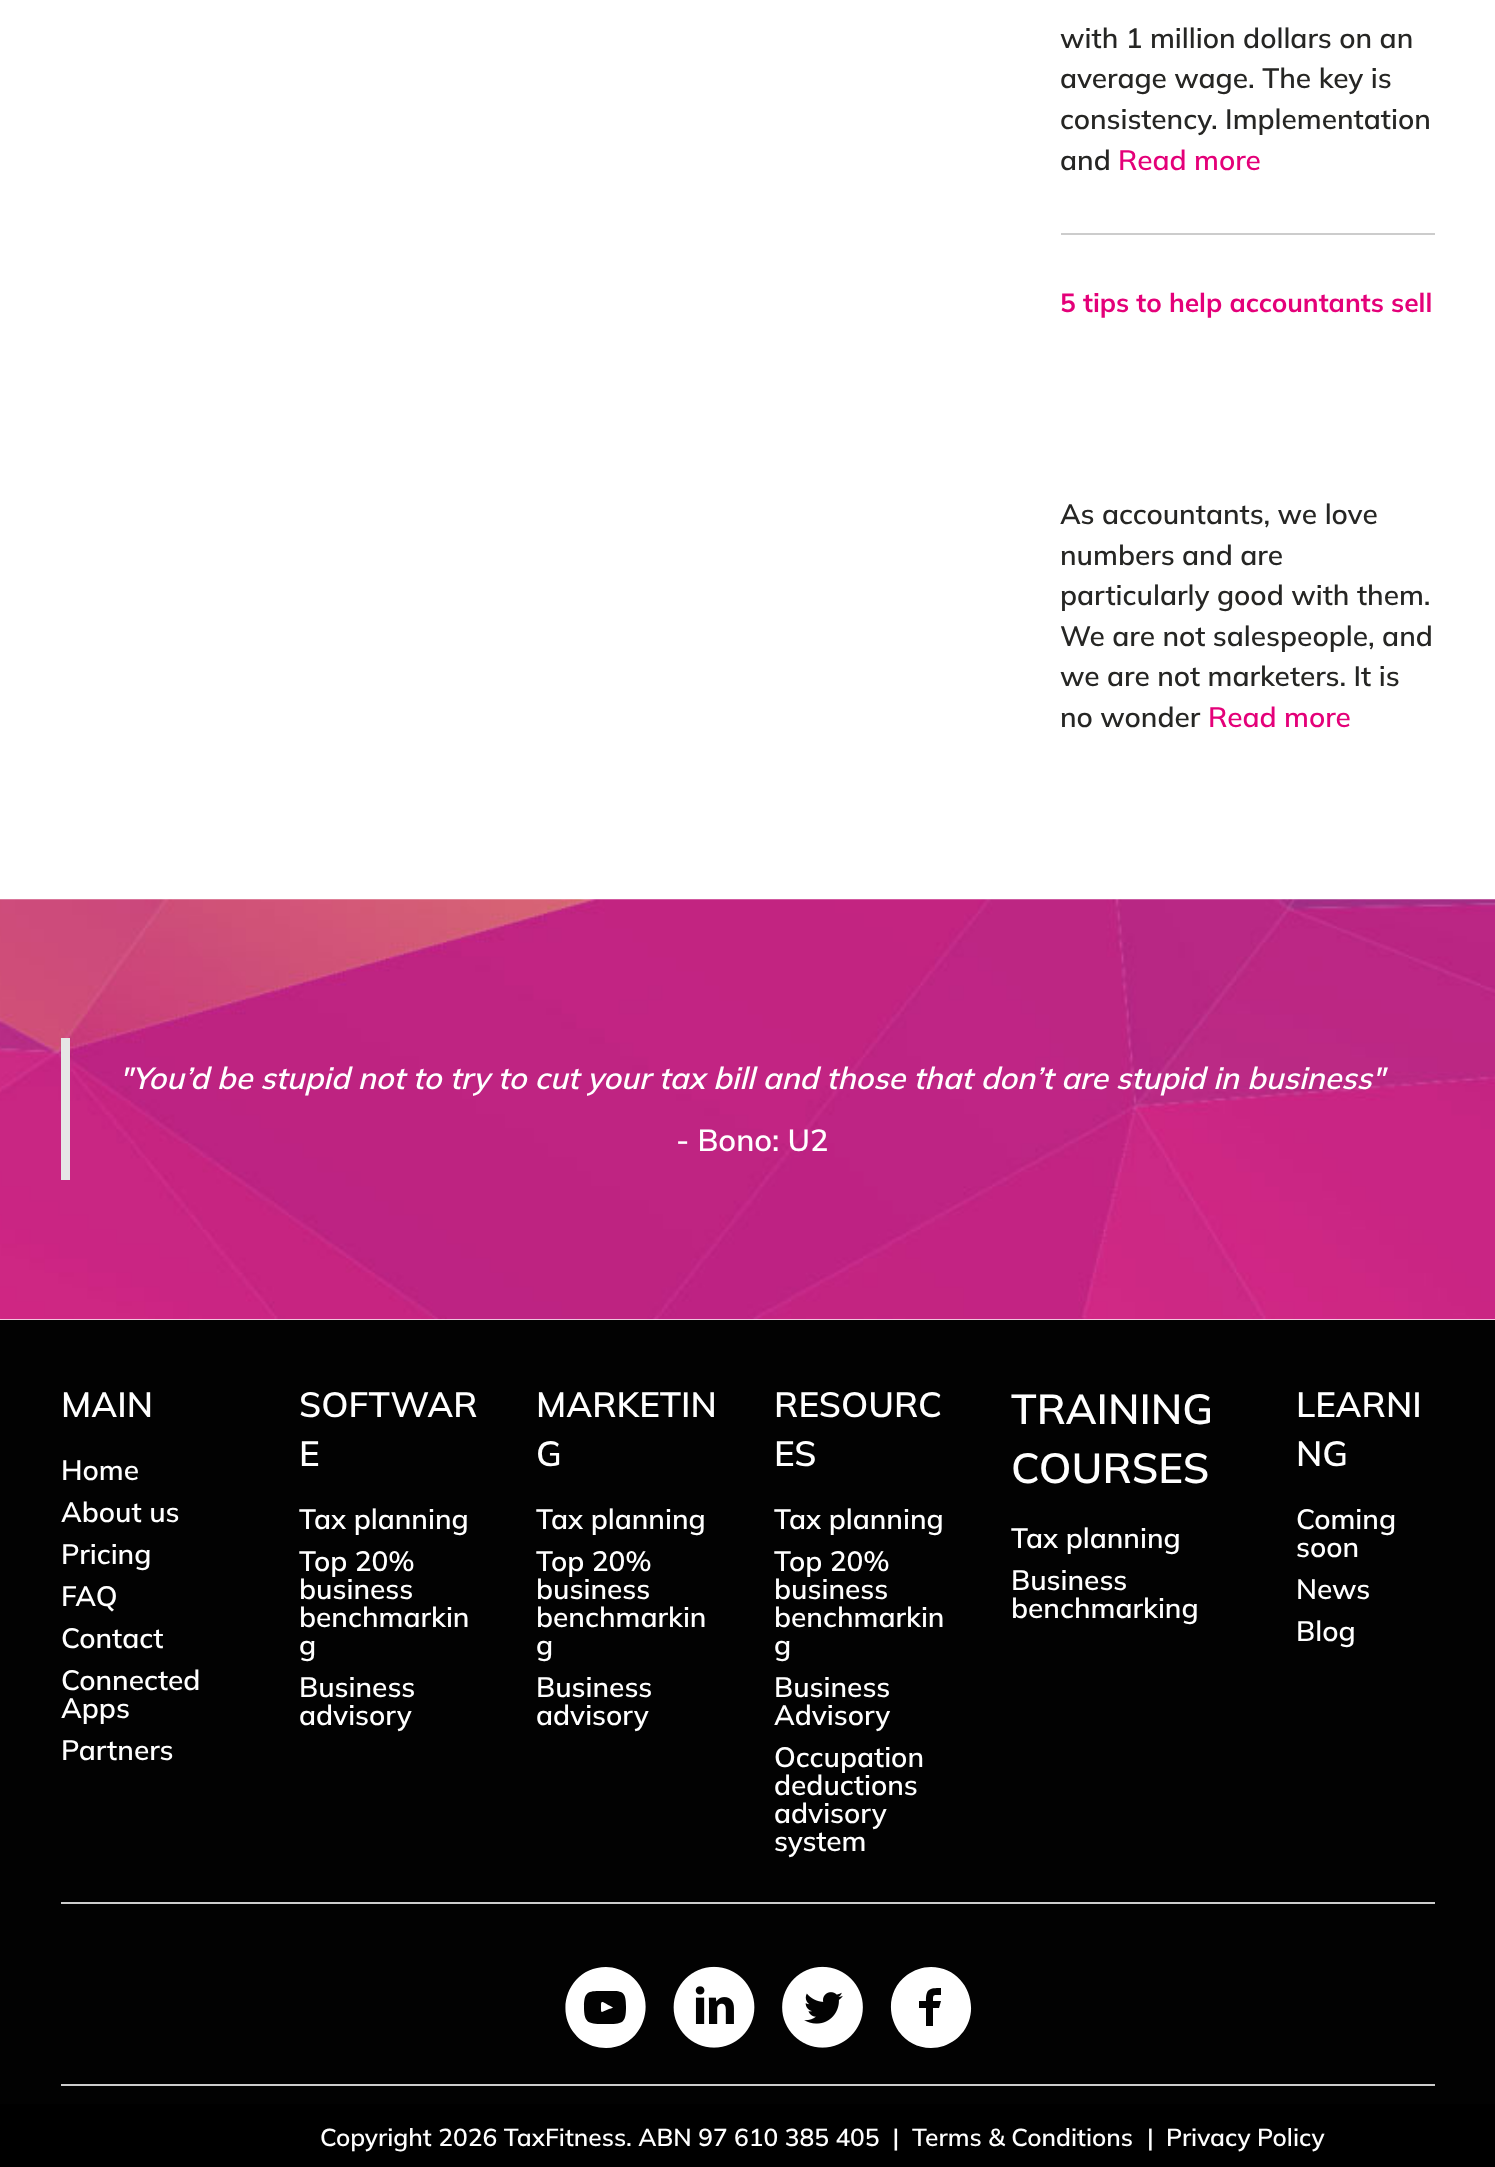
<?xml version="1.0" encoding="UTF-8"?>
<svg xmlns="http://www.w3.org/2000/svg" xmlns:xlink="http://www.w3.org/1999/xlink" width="1495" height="2167">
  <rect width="100%" height="100%" fill="#ffffff" />
  <rect x="1061" y="233" width="374" height="2" fill="#cccccc" />
  <image x="0" y="899" width="1495" height="421" xlink:href="image1.png" />
  <rect x="61" y="1038" width="9" height="142" fill="#e6e6e6" />
  <rect y="1320" width="1495" height="784" fill="#020202" />
  <rect x="61" y="1902" width="1374" height="2" fill="#cccccc" />
  <path d="M 612 2007 c -12 -6 -11 -8 -11 3 c 0 0 0 2 1 2 l 7 -3 c 0 0 6 -1 3 -2 z m -6 -40 c -39 0 -55 49 -25 73 c 7 5 16 8 25 8 c 38 0 54 -50 24 -73 c -7 -5 -16 -8 -24 -8 z m 0 57 c -17 0 -22 0 -22 -17 c 0 -17 5 -16 22 -16 c 16 0 20 -1 20 16 c 0 17 -4 17 -20 17 z" fill="#ffffff" />
  <image x="673" y="1966" width="82" height="82" xlink:href="image2.png" />
  <image x="782" y="1966" width="81" height="82" xlink:href="image3.png" />
  <path d="M 931 1967 c -9 0 -17 3 -24 8 c -31 23 -14 73 24 73 c 9 0 17 -3 24 -8 c 31 -24 14 -73 -24 -73 z m 10 28 c -8 0 -8 -1 -8 6 h 8 l -2 7 h -6 v 18 h -7 v -18 h -7 v -7 h 7 c 0 -12 3 -13 15 -13 z" fill="#ffffff" />
  <rect x="61" y="2084" width="1374" height="2" fill="#cccccc" />
  <rect y="2104" width="1495" height="63" fill="#000000" />
  <text x="1060" y="48" style="font-family: Mulish; font-size: 28px; font-weight: 600; fill: #262624">with 1 million dollars on an</text>
  <text x="1060" y="88" style="font-family: Mulish; font-size: 28px; font-weight: 600; fill: #262624">average wage. The key is</text>
  <text x="1060" y="129" style="font-family: Mulish; font-size: 28px; font-weight: 600; fill: #262624">consistency. Implementation</text>
  <text x="1060" y="170" style="font-family: Mulish; font-size: 28px; font-weight: 600; fill: #262624">and</text>
  <text x="1118" y="170" style="font-family: Mulish; font-size: 28px; font-weight: 600; fill: #e40079">Read more</text>
  <text x="1060" y="312" style="font-family: Mulish; font-size: 26.25px; font-weight: bold; fill: #e40079">5 tips to help accountants sell</text>
  <text x="1060" y="524" style="font-family: Mulish; font-size: 28px; font-weight: 600; fill: #262624">As accountants, we love</text>
  <text x="1060" y="565" style="font-family: Mulish; font-size: 28px; font-weight: 600; fill: #262624">numbers and are</text>
  <text x="1060" y="605" style="font-family: Mulish; font-size: 28px; font-weight: 600; fill: #262624">particularly good with them.</text>
  <text x="1060" y="646" style="font-family: Mulish; font-size: 28px; font-weight: 600; fill: #262624">We are not salespeople, and</text>
  <text x="1060" y="686" style="font-family: Mulish; font-size: 28px; font-weight: 600; fill: #262624">we are not marketers. It is</text>
  <text x="1060" y="727" style="font-family: Mulish; font-size: 28px; font-weight: 600; fill: #262624">no wonder</text>
  <text x="1208" y="727" style="font-family: Mulish; font-size: 28px; font-weight: 600; fill: #e40079">Read more</text>
  <text x="119" y="1089" style="font-family: Mulish; font-size: 30.6px; font-weight: 600; font-style: italic; fill: #ffffff">"You’d be stupid not to try to cut your tax bill and those that don’t are stupid in business"</text>
  <text x="676" y="1151" style="font-family: Mulish; font-size: 30.6px; font-weight: 600; fill: #ffffff">- Bono: U2</text>
  <text x="61" y="1417" style="font-family: Mulish; font-size: 35px; font-weight: 600; fill: #ffffff">MAIN</text>
  <text x="61" y="1480" style="font-family: Mulish; font-size: 28px; font-weight: 600; fill: #ffffff">Home</text>
  <text x="61" y="1522" style="font-family: Mulish; font-size: 28px; font-weight: 600; fill: #ffffff">About us</text>
  <text x="61" y="1564" style="font-family: Mulish; font-size: 28px; font-weight: 600; fill: #ffffff">Pricing</text>
  <text x="61" y="1606" style="font-family: Mulish; font-size: 28px; font-weight: 600; fill: #ffffff">FAQ</text>
  <text x="61" y="1648" style="font-family: Mulish; font-size: 28px; font-weight: 600; fill: #ffffff">Contact</text>
  <text x="61" y="1690" style="font-family: Mulish; font-size: 28px; font-weight: 600; fill: #ffffff">Connected</text>
  <text x="61" y="1718" style="font-family: Mulish; font-size: 28px; font-weight: 600; fill: #ffffff">Apps</text>
  <text x="61" y="1760" style="font-family: Mulish; font-size: 28px; font-weight: 600; fill: #ffffff">Partners</text>
  <text x="299" y="1417" style="font-family: Mulish; font-size: 35px; font-weight: 600; fill: #ffffff">SOFTWAR</text>
  <text x="299" y="1466" style="font-family: Mulish; font-size: 35px; font-weight: 600; fill: #ffffff">E</text>
  <text x="299" y="1529" style="font-family: Mulish; font-size: 28px; font-weight: 600; fill: #ffffff">Tax planning</text>
  <text x="299" y="1571" style="font-family: Mulish; font-size: 28px; font-weight: 600; fill: #ffffff">Top 20%</text>
  <text x="299" y="1599" style="font-family: Mulish; font-size: 28px; font-weight: 600; fill: #ffffff">business</text>
  <text x="299" y="1627" style="font-family: Mulish; font-size: 28px; font-weight: 600; fill: #ffffff">benchmarkin</text>
  <text x="299" y="1655" style="font-family: Mulish; font-size: 28px; font-weight: 600; fill: #ffffff">g</text>
  <text x="299" y="1697" style="font-family: Mulish; font-size: 28px; font-weight: 600; fill: #ffffff">Business</text>
  <text x="299" y="1725" style="font-family: Mulish; font-size: 28px; font-weight: 600; fill: #ffffff">advisory</text>
  <text x="536" y="1417" style="font-family: Mulish; font-size: 35px; font-weight: 600; fill: #ffffff">MARKETIN</text>
  <text x="536" y="1466" style="font-family: Mulish; font-size: 35px; font-weight: 600; fill: #ffffff">G</text>
  <text x="536" y="1529" style="font-family: Mulish; font-size: 28px; font-weight: 600; fill: #ffffff">Tax planning</text>
  <text x="536" y="1571" style="font-family: Mulish; font-size: 28px; font-weight: 600; fill: #ffffff">Top 20%</text>
  <text x="536" y="1599" style="font-family: Mulish; font-size: 28px; font-weight: 600; fill: #ffffff">business</text>
  <text x="536" y="1627" style="font-family: Mulish; font-size: 28px; font-weight: 600; fill: #ffffff">benchmarkin</text>
  <text x="536" y="1655" style="font-family: Mulish; font-size: 28px; font-weight: 600; fill: #ffffff">g</text>
  <text x="536" y="1697" style="font-family: Mulish; font-size: 28px; font-weight: 600; fill: #ffffff">Business</text>
  <text x="536" y="1725" style="font-family: Mulish; font-size: 28px; font-weight: 600; fill: #ffffff">advisory</text>
  <text x="774" y="1417" style="font-family: Mulish; font-size: 35px; font-weight: 600; fill: #ffffff">RESOURC</text>
  <text x="774" y="1466" style="font-family: Mulish; font-size: 35px; font-weight: 600; fill: #ffffff">ES</text>
  <text x="774" y="1529" style="font-family: Mulish; font-size: 28px; font-weight: 600; fill: #ffffff">Tax planning</text>
  <text x="774" y="1571" style="font-family: Mulish; font-size: 28px; font-weight: 600; fill: #ffffff">Top 20%</text>
  <text x="774" y="1599" style="font-family: Mulish; font-size: 28px; font-weight: 600; fill: #ffffff">business</text>
  <text x="774" y="1627" style="font-family: Mulish; font-size: 28px; font-weight: 600; fill: #ffffff">benchmarkin</text>
  <text x="774" y="1655" style="font-family: Mulish; font-size: 28px; font-weight: 600; fill: #ffffff">g</text>
  <text x="774" y="1697" style="font-family: Mulish; font-size: 28px; font-weight: 600; fill: #ffffff">Business</text>
  <text x="774" y="1725" style="font-family: Mulish; font-size: 28px; font-weight: 600; fill: #ffffff">Advisory</text>
  <text x="774" y="1767" style="font-family: Mulish; font-size: 28px; font-weight: 600; fill: #ffffff">Occupation</text>
  <text x="774" y="1795" style="font-family: Mulish; font-size: 28px; font-weight: 600; fill: #ffffff">deductions</text>
  <text x="774" y="1823" style="font-family: Mulish; font-size: 28px; font-weight: 600; fill: #ffffff">advisory</text>
  <text x="774" y="1851" style="font-family: Mulish; font-size: 28px; font-weight: 600; fill: #ffffff">system</text>
  <text x="1011" y="1424" style="font-family: Mulish; font-size: 42px; font-weight: 600; fill: #ffffff">TRAINING</text>
  <text x="1011" y="1483" style="font-family: Mulish; font-size: 42px; font-weight: 600; fill: #ffffff">COURSES</text>
  <text x="1011" y="1548" style="font-family: Mulish; font-size: 28px; font-weight: 600; fill: #ffffff">Tax planning</text>
  <text x="1011" y="1590" style="font-family: Mulish; font-size: 28px; font-weight: 600; fill: #ffffff">Business</text>
  <text x="1011" y="1618" style="font-family: Mulish; font-size: 28px; font-weight: 600; fill: #ffffff">benchmarking</text>
  <text x="1296" y="1417" style="font-family: Mulish; font-size: 35px; font-weight: 600; fill: #ffffff">LEARNI</text>
  <text x="1296" y="1466" style="font-family: Mulish; font-size: 35px; font-weight: 600; fill: #ffffff">NG</text>
  <text x="1296" y="1529" style="font-family: Mulish; font-size: 28px; font-weight: 600; fill: #ffffff">Coming</text>
  <text x="1296" y="1557" style="font-family: Mulish; font-size: 28px; font-weight: 600; fill: #ffffff">soon</text>
  <text x="1296" y="1599" style="font-family: Mulish; font-size: 28px; font-weight: 600; fill: #ffffff">News</text>
  <text x="1296" y="1641" style="font-family: Mulish; font-size: 28px; font-weight: 600; fill: #ffffff">Blog</text>
  <text x="320" y="2146" style="font-family: Mulish; font-size: 24.5px; font-weight: 600; fill: #ffffff" xml:space="preserve">Copyright 2026 TaxFitness. ABN 97 610 385 405  |</text>
  <text x="912" y="2146" style="font-family: Mulish; font-size: 24.5px; font-weight: 600; fill: #ffffff">Terms &amp; Conditions</text>
  <text x="1147" y="2146" style="font-family: Mulish; font-size: 24.5px; font-weight: 600; fill: #ffffff">|</text>
  <text x="1166" y="2146" style="font-family: Mulish; font-size: 24.5px; font-weight: 600; fill: #ffffff">Privacy Policy</text>
</svg>
